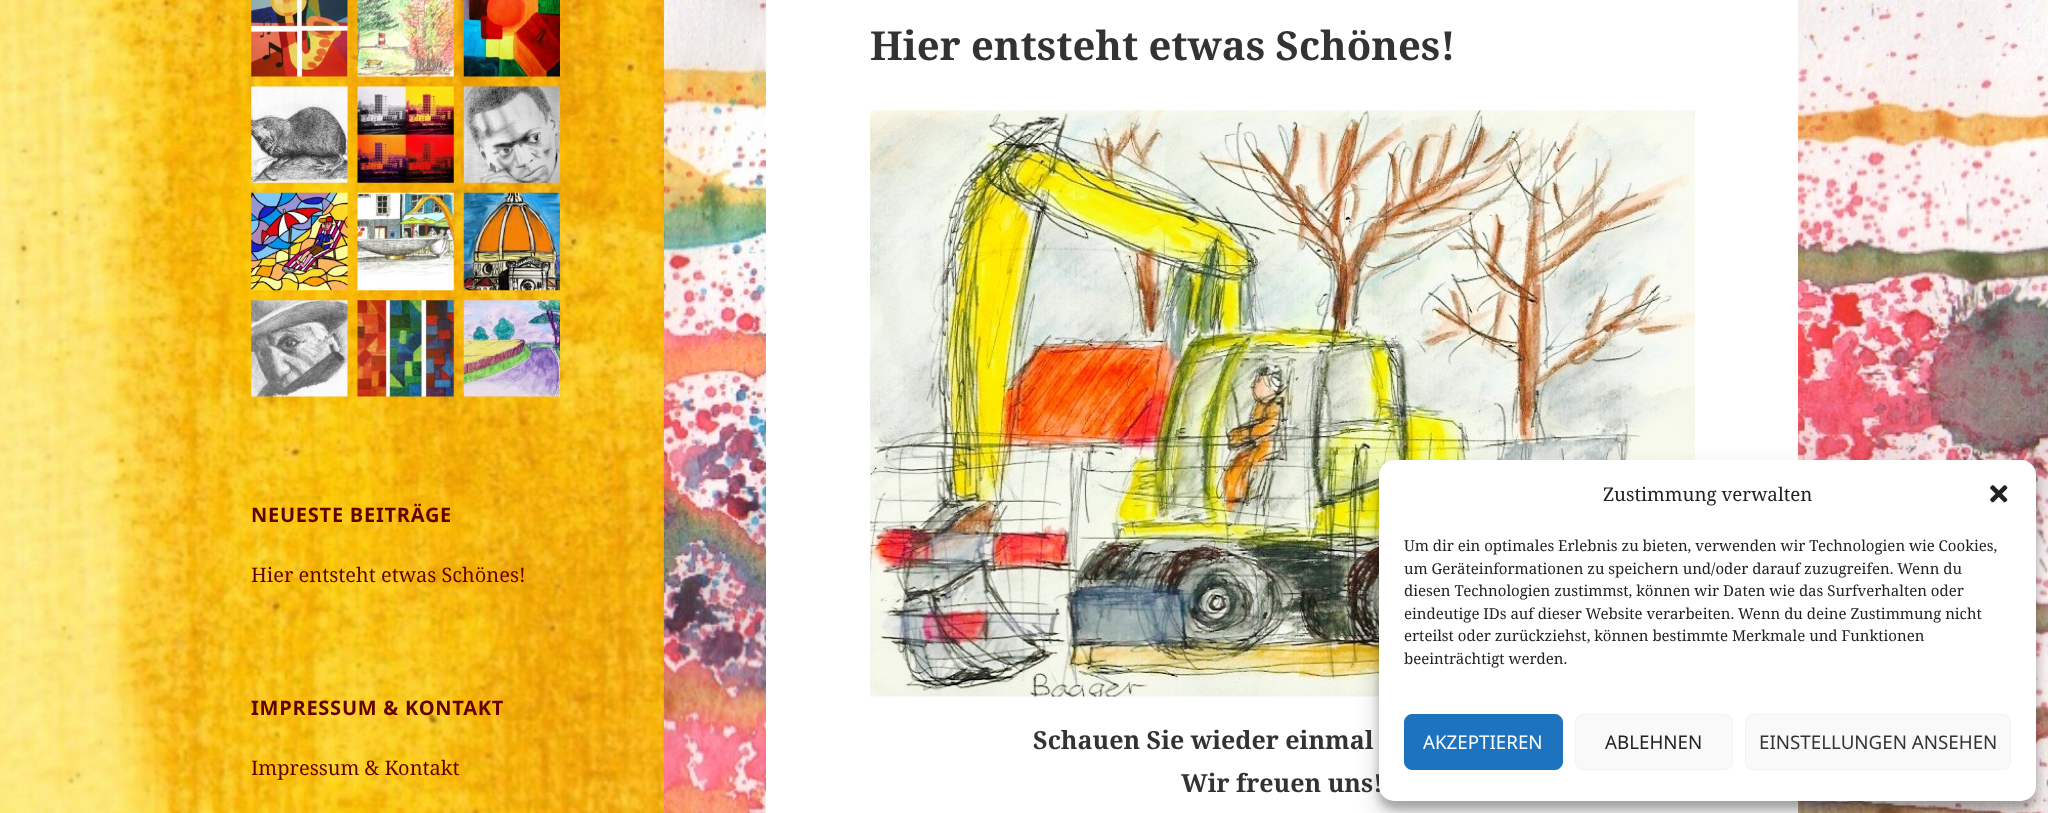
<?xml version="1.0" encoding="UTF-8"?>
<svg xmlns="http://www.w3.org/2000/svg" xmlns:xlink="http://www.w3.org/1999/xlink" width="2048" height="813">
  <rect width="100%" height="100%" fill="#ffffff" />
  <image x="663" y="0" width="1385" height="813" xlink:href="image1.png" />
  <rect width="664" height="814" fill="#000000" fill-opacity="0.15" filter="blur(0.5px)" />
  <image x="0" y="0" width="664" height="813" xlink:href="image2.png" />
  <image x="251" y="0" width="97" height="77" xlink:href="image3.png" />
  <image x="357" y="0" width="97" height="77" xlink:href="image4.png" />
  <image x="463" y="0" width="97" height="77" xlink:href="image5.png" />
  <image x="251" y="86" width="97" height="97" xlink:href="image6.png" />
  <image x="357" y="86" width="97" height="97" xlink:href="image7.png" />
  <image x="463" y="86" width="97" height="97" xlink:href="image8.png" />
  <image x="251" y="192" width="97" height="99" xlink:href="image9.png" />
  <image x="357" y="192" width="97" height="99" xlink:href="image10.png" />
  <image x="463" y="192" width="97" height="99" xlink:href="image11.png" />
  <image x="251" y="300" width="97" height="97" xlink:href="image12.png" />
  <image x="357" y="300" width="97" height="97" xlink:href="image13.png" />
  <image x="463" y="300" width="97" height="97" xlink:href="image14.png" />
  <rect x="766" width="1032" height="813" fill="#ffffff" />
  <image x="870" y="110" width="825" height="587" xlink:href="image15.png" />
  <rect x="1379" y="468" width="657" height="341" rx="15" fill="#000000" fill-opacity="0.23" filter="blur(4px)" />
  <rect x="1379" y="473" width="657" height="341" rx="15" fill="#000000" fill-opacity="0.19" filter="blur(12.5px)" />
  <text x="251" y="522" style="font-family: Noto Sans; font-size: 20px; font-weight: bold; letter-spacing: 0.75px; fill: #630000">NEUESTE BEITRÄGE</text>
  <text x="251" y="582" style="font-family: Noto Serif; font-size: 20px; fill: #630000">Hier entsteht etwas Schönes!</text>
  <text x="251" y="715" style="font-family: Noto Sans; font-size: 20px; font-weight: bold; letter-spacing: 0.75px; fill: #630000">IMPRESSUM &amp; KONTAKT</text>
  <text x="251" y="775" style="font-family: Noto Serif; font-size: 20px; fill: #630000">Impressum &amp; Kontakt</text>
  <text x="870" y="60" style="font-family: Noto Serif; font-size: 40px; font-weight: bold; fill: #333333">Hier entsteht etwas Schönes!</text>
  <text x="1033" y="749" style="font-family: Noto Serif; font-size: 25px; font-weight: bold; fill: #333333">Schauen Sie wieder einmal</text>
  <text x="1181" y="792" style="font-family: Noto Serif; font-size: 25px; font-weight: bold; fill: #333333">Wir freuen uns!</text>
  <rect x="1379" y="460" width="657" height="341" rx="15" fill="#ffffff" />
  <text x="1603" y="501" style="font-family: Noto Serif; font-size: 18.75px; fill: #222222">Zustimmung verwalten</text>
  <image x="1990" y="485" width="18" height="18" xlink:href="image16.png" />
  <text x="1404" y="551" style="font-family: Noto Serif; font-size: 15px; fill: #222222">Um dir ein optimales Erlebnis zu bieten, verwenden wir Technologien wie Cookies,</text>
  <text x="1404" y="574" style="font-family: Noto Serif; font-size: 15px; fill: #222222">um Geräteinformationen zu speichern und/oder darauf zuzugreifen. Wenn du</text>
  <text x="1404" y="596" style="font-family: Noto Serif; font-size: 15px; fill: #222222">diesen Technologien zustimmst, können wir Daten wie das Surfverhalten oder</text>
  <text x="1404" y="619" style="font-family: Noto Serif; font-size: 15px; fill: #222222">eindeutige IDs auf dieser Website verarbeiten. Wenn du deine Zustimmung nicht</text>
  <text x="1404" y="641" style="font-family: Noto Serif; font-size: 15px; fill: #222222">erteilst oder zurückziehst, können bestimmte Merkmale und Funktionen</text>
  <text x="1404" y="664" style="font-family: Noto Serif; font-size: 15px; fill: #222222">beeinträchtigt werden.</text>
  <rect x="1404.5" y="714.5" width="158" height="55" rx="7.5" fill="#1e73be" stroke="#1e73be" />
  <text x="1423" y="749" style="font-family: Noto Sans; font-size: 18.75px; fill: #ffffff">AKZEPTIEREN</text>
  <rect x="1575.5" y="714.5" width="157" height="55" rx="7.5" fill="#f9f9f9" stroke="#f2f2f2" />
  <text x="1605" y="749" style="font-family: Noto Sans; font-size: 18.75px; fill: #222222">ABLEHNEN</text>
  <rect x="1745.5" y="714.5" width="265" height="55" rx="7.5" fill="#f9f9f9" stroke="#f2f2f2" />
  <text x="1759" y="749" style="font-family: Noto Sans; font-size: 18.75px; fill: #333333">EINSTELLUNGEN ANSEHEN</text>
</svg>
